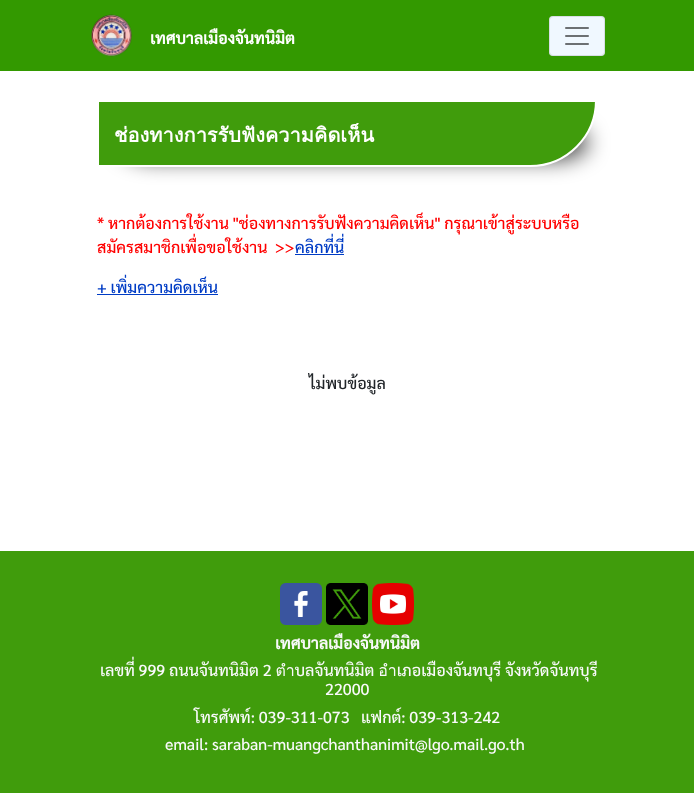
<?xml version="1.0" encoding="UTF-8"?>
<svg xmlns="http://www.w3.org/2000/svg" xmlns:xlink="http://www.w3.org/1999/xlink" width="694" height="793">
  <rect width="100%" height="100%" fill="#ffffff" />
  <rect width="694" height="71" fill="#339900" />
  <image x="91" y="14" width="41" height="43" xlink:href="image1.png" />
  <rect x="549" y="16" width="56" height="40" rx="4" fill="#f0f8ff" />
  <rect x="549.5" y="16.5" width="55" height="39" rx="3.5" fill="none" stroke="#000000" stroke-opacity="0.1" />
  <image x="565" y="27" width="24" height="18" xlink:href="image2.png" />
  <rect x="120" y="125" width="468" height="35" rx="35" fill="#000000" fill-opacity="0.75" filter="blur(10.5px)" />
  <path d="M 98 101 h 498 v -1 c 0 36.5 -29.5 66 -66 66 h -432 z" fill="#409c0c" stroke="#ffffff" stroke-width="2" />
  <rect x="295" y="254" width="49" height="1" fill="#003cc5" />
  <rect x="97" y="294" width="121" height="1" fill="#003cc5" />
  <rect y="551" width="694" height="242" fill="#409c0c" />
  <image x="280" y="583" width="42" height="42" xlink:href="image3.png" />
  <image x="326" y="583" width="42" height="42" xlink:href="image4.png" />
  <image x="372" y="583" width="42" height="42" xlink:href="image5.png" />
  <text x="150" y="44" style="font-family: Sarabun; font-size: 16px; font-weight: bold; fill: #ffffff">เทศบาลเมืองจันทนิมิต</text>
  <text x="114" y="142" style="font-family: Loma; font-size: 20px; font-weight: bold; fill: #ffffff">ช่องทางการรับฟังความคิดเห็น</text>
  <text x="97" y="229" style="font-family: Sarabun; font-size: 16px; font-weight: 500; fill: #ff0000">* หากต้องการใช้งาน "ช่องทางการรับฟังความคิดเห็น" กรุณาเข้าสู่ระบบหรือ</text>
  <text x="97" y="253" style="font-family: Sarabun; font-size: 16px; font-weight: 500; fill: #ff0000" xml:space="preserve">สมัครสมาชิกเพื่อขอใช้งาน  &gt;&gt;</text>
  <text x="295" y="253" style="font-family: Sarabun; font-size: 16px; font-weight: 500; fill: #003cc5">คลิกที่นี่</text>
  <text x="97" y="293" style="font-family: Sarabun; font-size: 16px; font-weight: 500; fill: #003cc5">+ เพิ่มความคิดเห็น</text>
  <text x="309" y="389" style="font-family: Sarabun; font-size: 16px; font-weight: 500; fill: #212529">ไม่พบข้อมูล</text>
  <text x="275" y="649" style="font-family: Sarabun; font-size: 16px; font-weight: bold; fill: #f8f9fa">เทศบาลเมืองจันทนิมิต</text>
  <text x="100" y="676" style="font-family: Sarabun; font-size: 16px; font-weight: 500; fill: #f8f9fa">เลขที่ 999 ถนนจันทนิมิต 2 ตำบลจันทนิมิต อำเภอเมืองจันทบุรี จังหวัดจันทบุรี</text>
  <text x="325" y="695" style="font-family: Sarabun; font-size: 16px; font-weight: 500; fill: #f8f9fa">22000</text>
  <text x="194" y="723" style="font-family: Sarabun; font-size: 16px; font-weight: 500; fill: #f8f9fa" xml:space="preserve">โทรศัพท์: 039-311-073   แฟกต์: 039-313-242</text>
  <text x="165" y="750" style="font-family: Sarabun; font-size: 16px; font-weight: 500; fill: #f8f9fa">email: saraban-muangchanthanimit@lgo.mail.go.th</text>
</svg>
